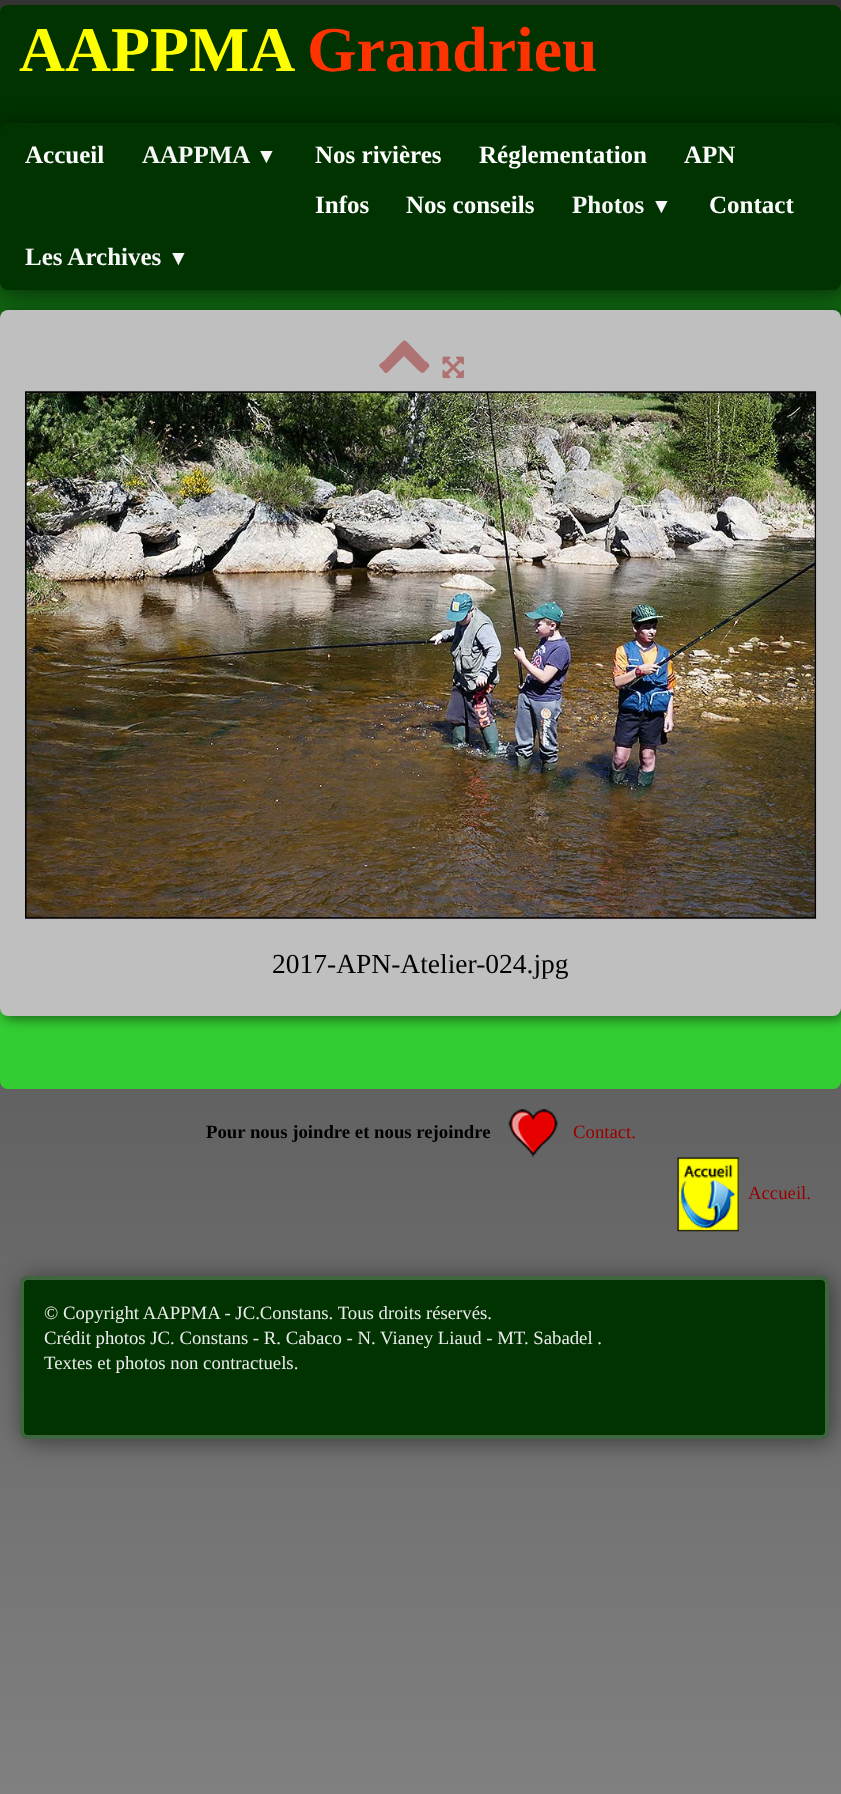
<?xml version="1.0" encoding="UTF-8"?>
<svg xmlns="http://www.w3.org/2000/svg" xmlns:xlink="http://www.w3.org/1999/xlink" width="841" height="1794">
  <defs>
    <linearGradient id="g1" gradientUnits="userSpaceOnUse" x1="421" y1="0" x2="421" y2="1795"><stop offset="0" stop-color="#333333" /><stop offset="1" stop-color="#808080" /></linearGradient>
    <linearGradient id="g2" gradientUnits="userSpaceOnUse" x1="421" y1="5" x2="421" y2="1089"><stop offset="0.12" stop-color="#003300" /><stop offset="0.6" stop-color="#33cc33" /></linearGradient>
  </defs>
  <rect width="100%" height="100%" fill="#ffffff" />
  <rect width="841" height="1794" fill="url(#g1)" />
  <rect y="5" width="841" height="1084" rx="8" fill="url(#g2)" />
  <rect x="3" y="125" width="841" height="168" rx="8" fill="#000000" fill-opacity="0.5" filter="blur(12.5px)" />
  <rect y="123" width="841" height="167" rx="8" fill="#003300" />
  <rect x="3" y="313" width="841" height="706" rx="8" fill="#000000" fill-opacity="0.5" filter="blur(6px)" />
  <rect y="310" width="841" height="706" rx="8" fill="#bfbfbf" />
  <path d="M 429 367 c -6 6 -5 8 -11 3 l -14 -14 l -14 14 c -5 5 -4 4 -9 -2 c -4 -3 -1 -4 3 -7 l 15 -16 c 6 -6 5 -6 11 0 l 15 16 c 1 0 6 4 4 6 z" fill="#b07373" />
  <image x="442" y="356" width="22" height="23" xlink:href="image1.png" />
  <image x="25" y="391" width="792" height="528" xlink:href="image2.png" />
  <image x="508" y="1108" width="50" height="50" xlink:href="image3.png" />
  <image x="677" y="1157" width="62" height="75" xlink:href="image4.png" />
  <rect x="23" y="1279" width="808" height="162" rx="8" fill="#000000" fill-opacity="0.5" filter="blur(12.5px)" />
  <rect x="20" y="1276" width="809" height="163" rx="8" fill="#003300" />
  <rect x="22" y="1278" width="805" height="159" rx="6" fill="none" stroke="#ffffff" stroke-opacity="0.25" stroke-width="4" />
  <text x="19" y="71" style="font-family: Liberation Serif; font-size: 63.75px; font-weight: bold; fill: #ffff00">AAPPMA</text>
  <text x="307" y="71" style="font-family: Liberation Serif; font-size: 63.75px; font-weight: bold; fill: #ff3300">Grandrieu</text>
  <text x="25" y="163" style="font-family: Liberation Serif; font-size: 25px; font-weight: bold; fill: #ffffff">Accueil</text>
  <text x="142" y="163" style="font-family: Liberation Serif; font-size: 25px; font-weight: bold; fill: #f7f7f7">AAPPMA</text>
  <text x="256" y="163" style="font-family: Liberation Serif; font-size: 21px; font-weight: bold; fill: #f7f7f7">▼</text>
  <text x="315" y="163" style="font-family: Liberation Serif; font-size: 25px; font-weight: bold; fill: #ffffff">Nos rivières</text>
  <text x="479" y="163" style="font-family: Liberation Serif; font-size: 25px; font-weight: bold; fill: #ffffff">Réglementation</text>
  <text x="684" y="163" style="font-family: Liberation Serif; font-size: 25px; font-weight: bold; fill: #ffffff">APN</text>
  <text x="315" y="213" style="font-family: Liberation Serif; font-size: 25px; font-weight: bold; fill: #ffffff">Infos</text>
  <text x="406" y="213" style="font-family: Liberation Serif; font-size: 25px; font-weight: bold; fill: #ffffff">Nos conseils</text>
  <text x="572" y="213" style="font-family: Liberation Serif; font-size: 25px; font-weight: bold; fill: #f7f7f7">Photos</text>
  <text x="651" y="213" style="font-family: Liberation Serif; font-size: 21px; font-weight: bold; fill: #f7f7f7">▼</text>
  <text x="709" y="213" style="font-family: Liberation Serif; font-size: 25px; font-weight: bold; fill: #ffffff">Contact</text>
  <text x="25" y="265" style="font-family: Liberation Serif; font-size: 25px; font-weight: bold; fill: #f7f7f7">Les Archives</text>
  <text x="168" y="265" style="font-family: Liberation Serif; font-size: 21px; font-weight: bold; fill: #f7f7f7">▼</text>
  <text x="272" y="973" style="font-family: Liberation Serif; font-size: 27.5px; fill: #000000">2017-APN-Atelier-024.jpg</text>
  <text x="206" y="1138" style="font-family: Liberation Serif; font-size: 18.75px; font-weight: bold; fill: #000000">Pour nous joindre et nous rejoindre</text>
  <text x="573" y="1138" style="font-family: Liberation Serif; font-size: 18.75px; fill: #990000">Contact.</text>
  <text x="748" y="1199" style="font-family: Liberation Serif; font-size: 18.75px; fill: #990000">Accueil.</text>
  <text x="44" y="1319" style="font-family: Liberation Serif; font-size: 18.75px; fill: #ebebeb">© Copyright AAPPMA - JC.Constans. Tous droits réservés.</text>
  <text x="44" y="1344" style="font-family: Liberation Serif; font-size: 18.75px; fill: #ebebeb">Crédit photos JC. Constans - R. Cabaco - N. Vianey Liaud - MT. Sabadel .</text>
  <text x="44" y="1369" style="font-family: Liberation Serif; font-size: 18.75px; fill: #ebebeb">Textes et photos non contractuels.</text>
</svg>
